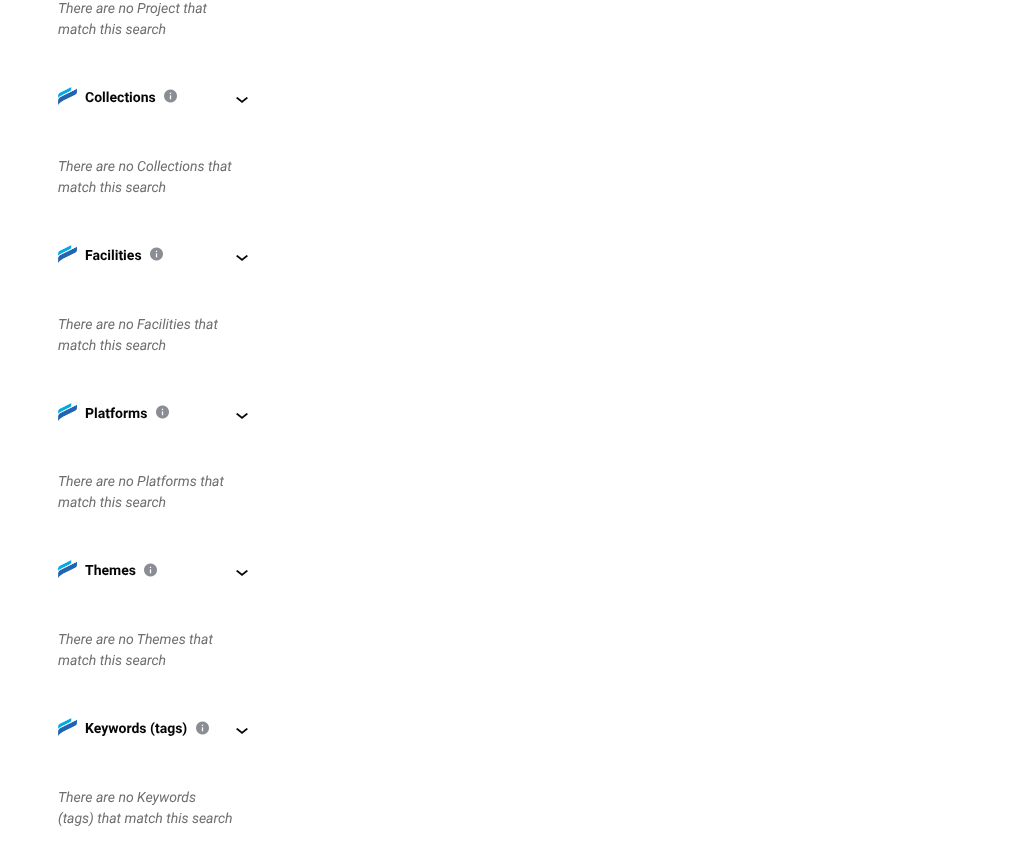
<?xml version="1.0" encoding="UTF-8"?>
<svg xmlns="http://www.w3.org/2000/svg" xmlns:xlink="http://www.w3.org/1999/xlink" width="1013" height="843">
  <rect width="100%" height="100%" fill="#ffffff" />
  <image x="58" y="87" width="19" height="18" xlink:href="image1.png" />
  <image x="164" y="89" width="13" height="14" xlink:href="image2.png" />
  <image x="236" y="97" width="12" height="6" xlink:href="image3.png" />
  <image x="58" y="245" width="19" height="18" xlink:href="image1.png" />
  <image x="150" y="247" width="13" height="14" xlink:href="image2.png" />
  <image x="236" y="255" width="12" height="6" xlink:href="image3.png" />
  <image x="58" y="403" width="19" height="18" xlink:href="image4.png" />
  <image x="156" y="405" width="13" height="14" xlink:href="image2.png" />
  <image x="236" y="413" width="12" height="6" xlink:href="image3.png" />
  <image x="58" y="560" width="19" height="18" xlink:href="image1.png" />
  <image x="144" y="563" width="13" height="14" xlink:href="image2.png" />
  <image x="236" y="570" width="12" height="6" xlink:href="image3.png" />
  <image x="58" y="718" width="19" height="18" xlink:href="image5.png" />
  <image x="196" y="721" width="13" height="14" xlink:href="image2.png" />
  <image x="236" y="728" width="12" height="6" xlink:href="image3.png" />
  <text x="58" y="13" style="font-family: Roboto; font-size: 14px; font-style: italic; fill: #6e6e6e">There are no Project that</text>
  <text x="58" y="34" style="font-family: Roboto; font-size: 14px; font-style: italic; fill: #6e6e6e">match this search</text>
  <text x="85" y="102" style="font-family: Roboto; font-size: 14px; font-weight: bold; fill: #050505">Collections</text>
  <text x="58" y="171" style="font-family: Roboto; font-size: 14px; font-style: italic; fill: #6e6e6e">There are no Collections that</text>
  <text x="58" y="192" style="font-family: Roboto; font-size: 14px; font-style: italic; fill: #6e6e6e">match this search</text>
  <text x="85" y="260" style="font-family: Roboto; font-size: 14px; font-weight: bold; fill: #050505">Facilities</text>
  <text x="58" y="329" style="font-family: Roboto; font-size: 14px; font-style: italic; fill: #6e6e6e">There are no Facilities that</text>
  <text x="58" y="350" style="font-family: Roboto; font-size: 14px; font-style: italic; fill: #6e6e6e">match this search</text>
  <text x="85" y="418" style="font-family: Roboto; font-size: 14px; font-weight: bold; fill: #050505">Platforms</text>
  <text x="58" y="486" style="font-family: Roboto; font-size: 14px; font-style: italic; fill: #6e6e6e">There are no Platforms that</text>
  <text x="58" y="507" style="font-family: Roboto; font-size: 14px; font-style: italic; fill: #6e6e6e">match this search</text>
  <text x="85" y="575" style="font-family: Roboto; font-size: 14px; font-weight: bold; fill: #050505">Themes</text>
  <text x="58" y="644" style="font-family: Roboto; font-size: 14px; font-style: italic; fill: #6e6e6e">There are no Themes that</text>
  <text x="58" y="665" style="font-family: Roboto; font-size: 14px; font-style: italic; fill: #6e6e6e">match this search</text>
  <text x="85" y="733" style="font-family: Roboto; font-size: 14px; font-weight: bold; fill: #050505">Keywords (tags)</text>
  <text x="58" y="802" style="font-family: Roboto; font-size: 14px; font-style: italic; fill: #6e6e6e">There are no Keywords</text>
  <text x="58" y="823" style="font-family: Roboto; font-size: 14px; font-style: italic; fill: #6e6e6e">(tags) that match this search</text>
</svg>
